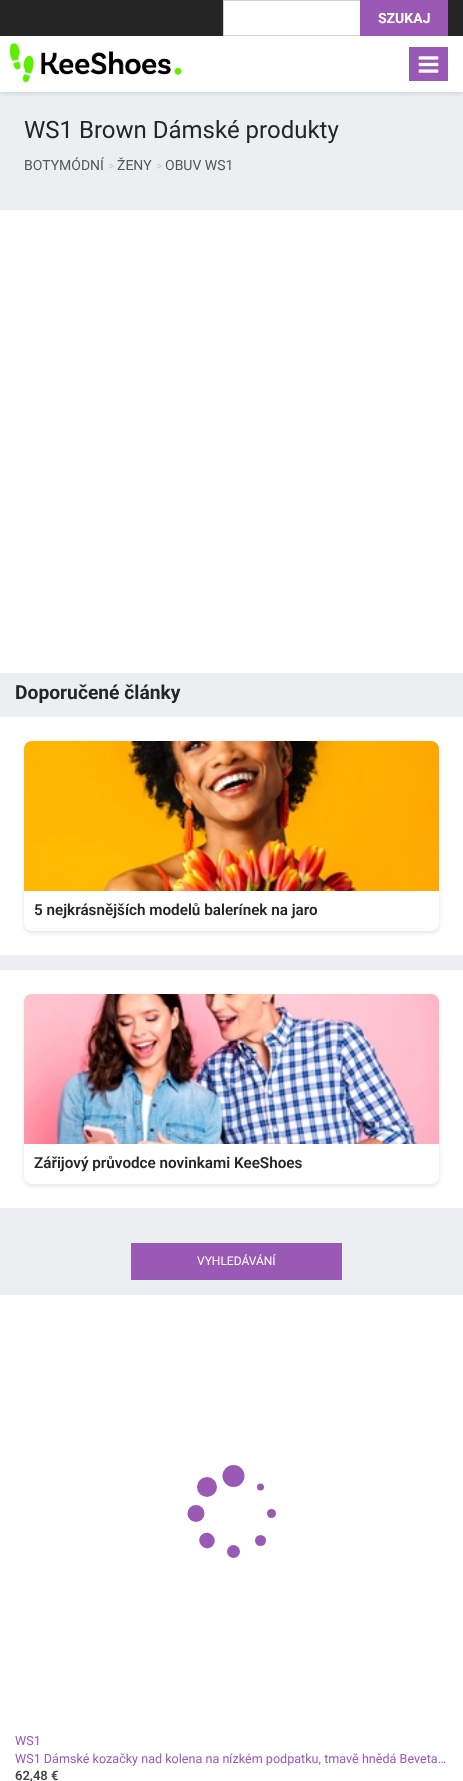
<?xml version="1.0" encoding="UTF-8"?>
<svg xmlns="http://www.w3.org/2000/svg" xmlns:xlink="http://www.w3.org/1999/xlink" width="463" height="1781">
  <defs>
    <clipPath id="clip1"><rect x="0" y="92" width="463" height="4" /></clipPath>
  </defs>
  <rect width="100%" height="100%" fill="#ffffff" />
  <rect width="463" height="36" fill="#252525" />
  <rect x="224" y="1" width="136" height="34" fill="#ffffff" />
  <rect x="223.5" y="0.5" width="224" height="35" fill="none" stroke="#ced4da" />
  <rect y="92" width="463" height="118" fill="#eceff1" />
  <g clip-path="url(#clip1)">
    <rect y="38" width="463" height="56" fill="#000000" fill-opacity="0.1" filter="blur(2px)" />
  </g>
  <rect x="360" width="88" height="36" fill="#9b59b6" />
  <image x="9" y="43" width="173" height="40" xlink:href="image1.png" />
  <rect x="409" y="47" width="39" height="34" fill="#9b59b6" />
  <image x="418" y="56" width="21" height="17" xlink:href="image2.png" />
  <rect y="673" width="463" height="622" fill="#eceff1" />
  <rect y="717" width="463" height="238" fill="#ffffff" />
  <rect x="24" y="743" width="415" height="190" rx="8" fill="#000000" fill-opacity="0.1" filter="blur(2px)" />
  <rect x="24" y="741" width="415" height="190" rx="8" fill="#ffffff" />
  <image x="24" y="741" width="415" height="150" xlink:href="image3.png" />
  <rect y="970" width="463" height="238" fill="#ffffff" />
  <rect x="24" y="996" width="415" height="190" rx="8" fill="#000000" fill-opacity="0.1" filter="blur(2px)" />
  <rect x="24" y="994" width="415" height="190" rx="8" fill="#ffffff" />
  <image x="24" y="994" width="415" height="150" xlink:href="image4.png" />
  <rect x="131" y="1243" width="211" height="37" fill="#9b59b6" />
  <circle cx="207" cy="1487" r="10" fill="#9b59b6" />
  <circle cx="233.5" cy="1476" r="11" fill="#9b59b6" />
  <circle cx="260.5" cy="1487" r="3.5" fill="#9b59b6" />
  <circle cx="196" cy="1513.5" r="8.5" fill="#9b59b6" />
  <circle cx="271.5" cy="1513.5" r="4.5" fill="#9b59b6" />
  <path d="M 201.5 1535 c -7 7 4 18 11 11 c 7 -7.5 -4 -18 -11 -11 z" fill="#9b59b6" />
  <circle cx="260.5" cy="1540.5" r="5.5" fill="#9b59b6" />
  <circle cx="233.5" cy="1551.5" r="6.5" fill="#9b59b6" />
  <text x="378" y="23" style="font-family: Roboto; font-size: 14px; font-weight: bold; fill: #ffffff">SZUKAJ</text>
  <text x="24" y="138" style="font-family: Roboto; font-size: 24px; fill: #252525">WS1 Brown Dámské produkty</text>
  <text x="24" y="170" style="font-family: Roboto; font-size: 14px; fill: #565656">BOTYMÓDNÍ</text>
  <text x="108" y="170" style="font-family: Roboto; font-size: 12px; fill: #cccccc">&gt;</text>
  <text x="117" y="170" style="font-family: Roboto; font-size: 14px; fill: #565656">ŽENY</text>
  <text x="156" y="170" style="font-family: Roboto; font-size: 12px; fill: #cccccc">&gt;</text>
  <text x="165" y="170" style="font-family: Roboto; font-size: 14px; fill: #565656">OBUV WS1</text>
  <text x="15" y="699" style="font-family: Roboto; font-size: 19.25px; font-weight: bold; fill: #252525">Doporučené články</text>
  <text x="34" y="915" style="font-family: Roboto; font-size: 15.25px; font-weight: 600; fill: #252525">5 nejkrásnějších modelů balerínek na jaro</text>
  <text x="34" y="1168" style="font-family: Roboto; font-size: 15.25px; font-weight: 600; fill: #252525">Zářijový průvodce novinkami KeeShoes</text>
  <text x="197" y="1265" style="font-family: Roboto; font-size: 12px; fill: #ffffff">VYHLEDÁVÁNÍ</text>
  <text x="15" y="1745" style="font-family: Roboto; font-size: 12.6px; fill: #9b59b6">WS1</text>
  <text x="15" y="1763" style="font-family: Roboto; font-size: 12.6px; fill: #9b59b6">WS1 Dámské kozačky nad kolena na nízkém podpatku, tmavě hnědá Beveta…</text>
  <text x="15" y="1780" style="font-family: Roboto; font-size: 13px; font-weight: 600; fill: #454545">62,48 €</text>
</svg>
